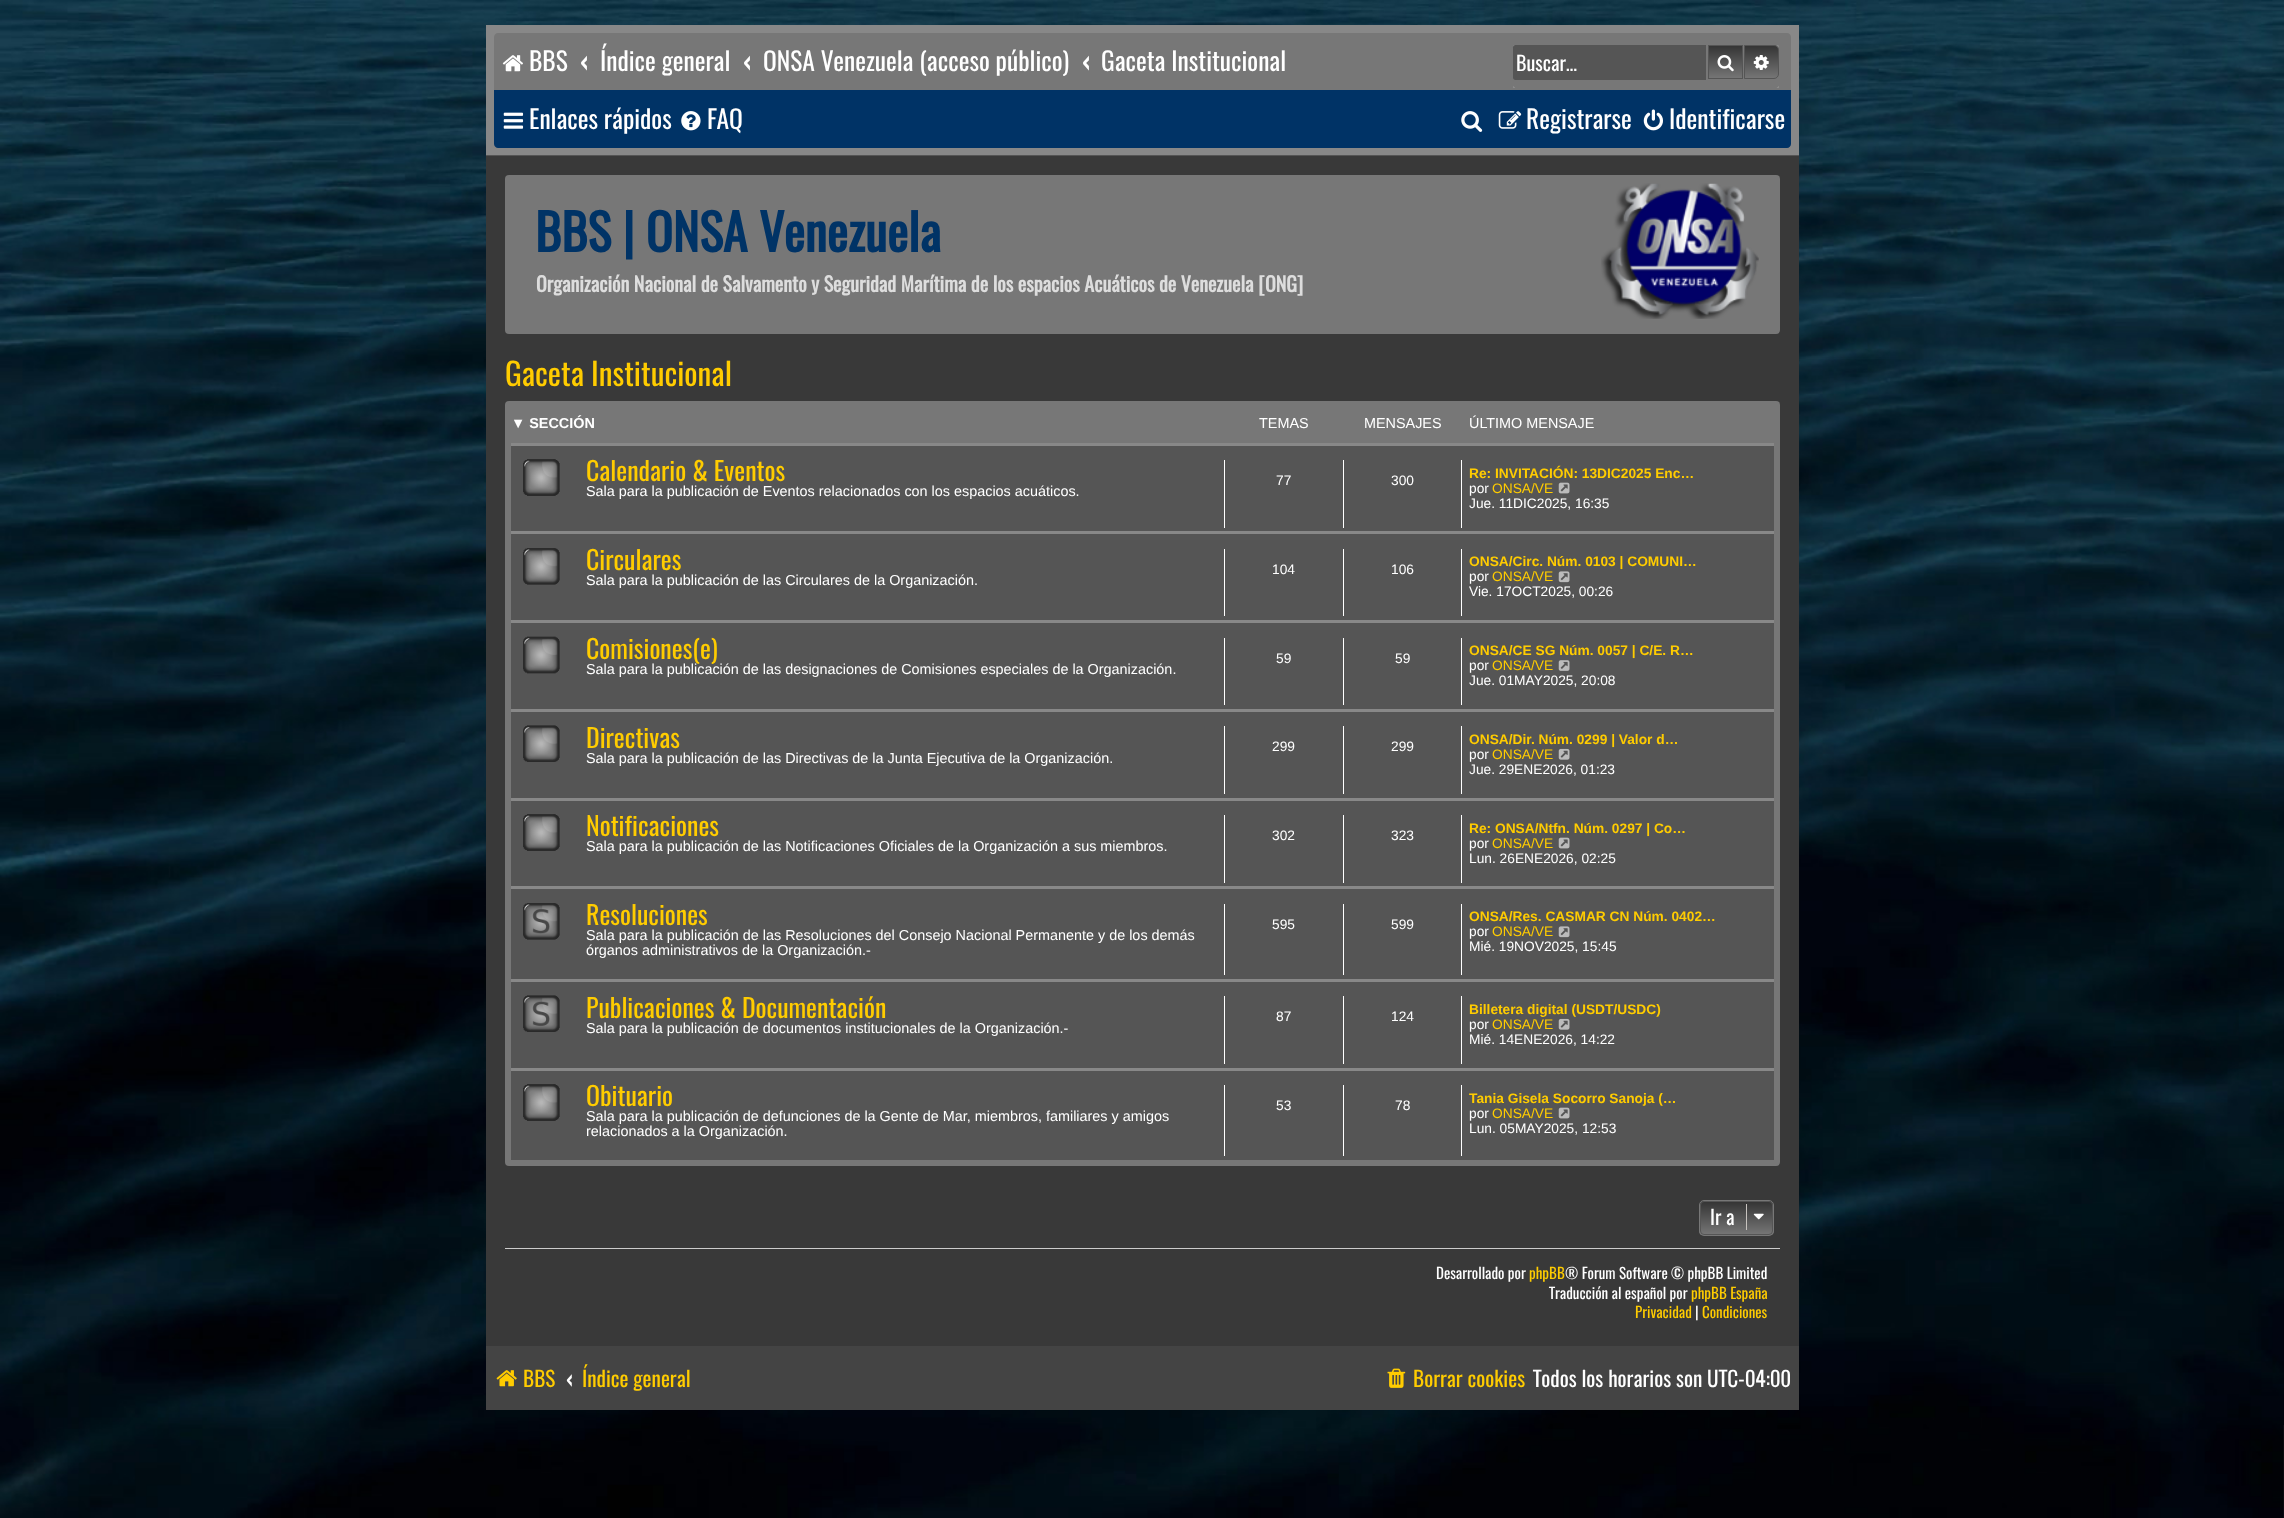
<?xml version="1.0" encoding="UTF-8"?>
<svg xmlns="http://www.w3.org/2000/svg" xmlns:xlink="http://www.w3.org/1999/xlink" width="2284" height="1518">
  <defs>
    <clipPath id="clip1"><path d="M 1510 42 h 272 v 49 h -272 z m 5.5 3 h 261 c 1.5 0 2.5 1 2.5 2.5 v 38 c 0 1.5 -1 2.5 -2.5 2.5 h -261 c -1.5 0 -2.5 -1 -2.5 -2.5 v -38 c 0 -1.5 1 -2.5 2.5 -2.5 z" clip-rule="evenodd" /></clipPath>
    <linearGradient id="g1" gradientUnits="userSpaceOnUse" x1="1725" y1="45" x2="1725" y2="79"><stop offset="0" stop-color="#333333" /><stop offset="1" stop-color="#777777" /></linearGradient>
    <linearGradient id="g2" gradientUnits="userSpaceOnUse" x1="1761" y1="45" x2="1761" y2="79"><stop offset="0" stop-color="#333333" /><stop offset="1" stop-color="#777777" /></linearGradient>
    <clipPath id="clip2"><rect x="1699" y="1200" width="75" height="36" rx="5" /></clipPath>
    <linearGradient id="g3" gradientUnits="userSpaceOnUse" x1="1736" y1="1201" x2="1736" y2="1235"><stop offset="0" stop-color="#333333" /><stop offset="1" stop-color="#777777" /></linearGradient>
  </defs>
  <rect width="100%" height="100%" fill="#ffffff" />
  <image x="0" y="0" width="2284" height="1518" xlink:href="image1.png" />
  <image x="0" y="0" width="2284" height="1425" xlink:href="image2.png" />
  <rect x="486" y="25" width="1313" height="130" fill="#888888" />
  <path d="M 498 33 h 1289 c 2 0 4 2 4 4 v 53 h -1297 v -53 c 0 -2 2 -4 4 -4 z" fill="#777777" />
  <image x="502" y="55" width="21" height="17" xlink:href="image3.png" />
  <path d="M 494 90 h 1297 v 54 c 0 2 -2 4 -4 4 h -1289 c -2 0 -4 -2 -4 -4 z" fill="#003366" />
  <g clip-path="url(#clip1)">
    <rect x="1513" y="45" width="266" height="43" rx="2.5" fill="#cccccc" filter="blur(0.5px)" />
  </g>
  <path d="M 1515.5 45 h 190.5 v 35 h -190.5 c -1.5 0 -2.5 -1 -2.5 -2.5 v -30 c 0 -1.5 1 -2.5 2.5 -2.5 z" fill="#555555" />
  <rect x="1709" y="46" width="33" height="32" fill="url(#g1)" />
  <rect x="1708.5" y="45.5" width="34" height="33" fill="none" stroke="#555555" />
  <image x="1717" y="55" width="17" height="17" xlink:href="image4.png" />
  <path d="M 1744.5 45.5 h 29.5 c 2.5 0 4.5 2 4.5 4.5 v 24 c 0 2.5 -2 4.5 -4.5 4.5 h -29.5 z" fill="url(#g2)" stroke="#555555" />
  <image x="1753" y="55" width="16" height="15" xlink:href="image5.png" />
  <image x="503" y="112" width="21" height="17" xlink:href="image6.png" />
  <image x="681" y="111" width="20" height="20" xlink:href="image7.png" />
  <image x="1461" y="111" width="22" height="21" xlink:href="image8.png" />
  <image x="1498" y="111" width="24" height="18" xlink:href="image9.png" />
  <image x="1643" y="109" width="20" height="22" xlink:href="image10.png" />
  <rect x="486" y="156" width="1313" height="1190" fill="#393939" />
  <rect x="486" y="155" width="1313" height="1" fill="#555555" />
  <rect x="505" y="175" width="1275" height="159" rx="4" fill="#777777" />
  <image x="1601" y="183" width="158" height="136" xlink:href="image11.png" />
  <rect x="505" y="401" width="1275" height="765" rx="4" fill="#777777" />
  <rect x="511" y="446" width="1263" height="85" fill="#555555" />
  <rect x="511" y="443" width="1263" height="3" fill="#888888" />
  <image x="523" y="459" width="37" height="37" xlink:href="image12.png" />
  <rect x="1224" y="460" width="1" height="68" fill="#ffffff" />
  <rect x="1343" y="460" width="1" height="68" fill="#ffffff" />
  <rect x="1461" y="460" width="1" height="68" fill="#ffffff" />
  <image x="1558" y="482" width="12" height="12" xlink:href="image13.png" />
  <rect x="511" y="534" width="1263" height="86" fill="#555555" />
  <rect x="511" y="531" width="1263" height="3" fill="#888888" />
  <image x="523" y="548" width="37" height="37" xlink:href="image14.png" />
  <rect x="1224" y="549" width="1" height="67" fill="#ffffff" />
  <rect x="1343" y="549" width="1" height="67" fill="#ffffff" />
  <rect x="1461" y="549" width="1" height="67" fill="#ffffff" />
  <image x="1558" y="571" width="12" height="12" xlink:href="image15.png" />
  <rect x="511" y="623" width="1263" height="86" fill="#555555" />
  <rect x="511" y="620" width="1263" height="3" fill="#888888" />
  <image x="523" y="636" width="37" height="38" xlink:href="image16.png" />
  <rect x="1224" y="638" width="1" height="67" fill="#ffffff" />
  <rect x="1343" y="638" width="1" height="67" fill="#ffffff" />
  <rect x="1461" y="638" width="1" height="67" fill="#ffffff" />
  <image x="1558" y="660" width="12" height="11" xlink:href="image17.png" />
  <rect x="511" y="712" width="1263" height="86" fill="#555555" />
  <rect x="511" y="709" width="1263" height="3" fill="#888888" />
  <image x="523" y="725" width="37" height="37" xlink:href="image18.png" />
  <rect x="1224" y="726" width="1" height="68" fill="#ffffff" />
  <rect x="1343" y="726" width="1" height="68" fill="#ffffff" />
  <rect x="1461" y="726" width="1" height="68" fill="#ffffff" />
  <image x="1558" y="748" width="12" height="12" xlink:href="image19.png" />
  <rect x="511" y="801" width="1263" height="85" fill="#555555" />
  <rect x="511" y="798" width="1263" height="3" fill="#888888" />
  <image x="523" y="814" width="37" height="37" xlink:href="image12.png" />
  <rect x="1224" y="815" width="1" height="68" fill="#ffffff" />
  <rect x="1343" y="815" width="1" height="68" fill="#ffffff" />
  <rect x="1461" y="815" width="1" height="68" fill="#ffffff" />
  <image x="1558" y="837" width="12" height="12" xlink:href="image13.png" />
  <rect x="511" y="889" width="1263" height="90" fill="#555555" />
  <rect x="511" y="886" width="1263" height="3" fill="#888888" />
  <image x="523" y="903" width="37" height="37" xlink:href="image20.png" />
  <rect x="1224" y="904" width="1" height="71" fill="#ffffff" />
  <rect x="1343" y="904" width="1" height="71" fill="#ffffff" />
  <rect x="1461" y="904" width="1" height="71" fill="#ffffff" />
  <image x="1558" y="926" width="12" height="12" xlink:href="image15.png" />
  <rect x="511" y="982" width="1263" height="86" fill="#555555" />
  <rect x="511" y="979" width="1263" height="3" fill="#888888" />
  <image x="523" y="995" width="37" height="37" xlink:href="image21.png" />
  <rect x="1224" y="996" width="1" height="68" fill="#ffffff" />
  <rect x="1343" y="996" width="1" height="68" fill="#ffffff" />
  <rect x="1461" y="996" width="1" height="68" fill="#ffffff" />
  <image x="1558" y="1018" width="12" height="12" xlink:href="image19.png" />
  <rect x="511" y="1071" width="1263" height="89" fill="#555555" />
  <rect x="511" y="1068" width="1263" height="3" fill="#888888" />
  <image x="523" y="1084" width="37" height="37" xlink:href="image12.png" />
  <rect x="1224" y="1085" width="1" height="71" fill="#ffffff" />
  <rect x="1343" y="1085" width="1" height="71" fill="#ffffff" />
  <rect x="1461" y="1085" width="1" height="71" fill="#ffffff" />
  <image x="1558" y="1107" width="12" height="12" xlink:href="image13.png" />
  <g clip-path="url(#clip2)">
    <rect x="1699" y="1201" width="75" height="34" fill="url(#g3)" />
  </g>
  <rect x="1700.5" y="1201.5" width="72" height="33" rx="3.5" fill="none" stroke="#555555" />
  <rect x="1699.5" y="1200.5" width="74" height="35" rx="4.5" fill="none" stroke="#777777" />
  <rect x="1746" y="1204" width="1" height="26" fill="#c7c3bf" />
  <image x="1753" y="1213" width="11" height="7" xlink:href="image22.png" />
  <rect x="505" y="1248" width="1275" height="1" fill="#cccccc" />
  <rect x="486" y="1346" width="1313" height="64" fill="#444444" />
  <image x="496" y="1370" width="21" height="17" xlink:href="image23.png" />
  <image x="1387" y="1368" width="19" height="20" xlink:href="image24.png" />
  <text x="529" y="71" style="font-family: Oswald; font-size: 25.5px; fill: #ffffff">BBS</text>
  <text x="580" y="71" style="font-family: Oswald; font-size: 25.5px; font-weight: bold; fill: #ffffff">‹</text>
  <text x="600" y="71" style="font-family: Oswald; font-size: 25.5px; fill: #ffffff">Índice general</text>
  <text x="743" y="71" style="font-family: Oswald; font-size: 25.5px; font-weight: bold; fill: #ffffff">‹</text>
  <text x="763" y="71" style="font-family: Oswald; font-size: 25.5px; fill: #ffffff">ONSA Venezuela (acceso público)</text>
  <text x="1082" y="71" style="font-family: Oswald; font-size: 25.5px; font-weight: bold; fill: #ffffff">‹</text>
  <text x="1101" y="71" style="font-family: Oswald; font-size: 25.5px; fill: #ffffff">Gaceta Institucional</text>
  <text x="1516" y="71" style="font-family: Oswald; font-size: 20px; fill: #ffffff">Buscar…</text>
  <text x="529" y="129" style="font-family: Oswald; font-size: 25.5px; fill: #ffffff">Enlaces rápidos</text>
  <text x="707" y="129" style="font-family: Oswald; font-size: 25.5px; fill: #ffffff">FAQ</text>
  <text x="1526" y="129" style="font-family: Oswald; font-size: 25.5px; fill: #ffffff">Registrarse</text>
  <text x="1669" y="129" style="font-family: Oswald; font-size: 25.5px; fill: #ffffff">Identificarse</text>
  <text x="535" y="252" style="font-family: Oswald; font-size: 50px; font-weight: bold; fill: #003366">BBS | ONSA Venezuela</text>
  <text x="536" y="292" style="font-family: Oswald; font-size: 20px; font-weight: bold; fill: #dddddd">Organización Nacional de Salvamento y Seguridad Marítima de los espacios Acuáticos de Venezuela [ONG]</text>
  <text x="505" y="386" style="font-family: Oswald; font-size: 31.25px; fill: #ffcc00">Gaceta Institucional</text>
  <text x="511" y="428" style="font-family: Liberation Sans; font-size: 14.4px; font-weight: bold; fill: #ffffff">▼ SECCIÓN</text>
  <text x="1259" y="428" style="font-family: Liberation Sans; font-size: 14.4px; fill: #ffffff">TEMAS</text>
  <text x="1364" y="428" style="font-family: Liberation Sans; font-size: 14.4px; fill: #ffffff">MENSAJES</text>
  <text x="1469" y="428" style="font-family: Liberation Sans; font-size: 14.4px; fill: #ffffff">ÚLTIMO MENSAJE</text>
  <text x="586" y="481" style="font-family: Oswald; font-size: 25.9px; fill: #ffcc00">Calendario &amp; Eventos</text>
  <text x="586" y="496" style="font-family: Liberation Sans; font-size: 14.4px; fill: #ffffff">Sala para la publicación de Eventos relacionados con los espacios acuáticos.</text>
  <text x="1276" y="485" style="font-family: Liberation Sans; font-size: 13.75px; fill: #ffffff">77</text>
  <text x="1391" y="485" style="font-family: Liberation Sans; font-size: 13.75px; fill: #ffffff">300</text>
  <text x="1469" y="478" style="font-family: Liberation Sans; font-size: 13.75px; font-weight: bold; fill: #ffcc00">Re: INVITACIÓN: 13DIC2025 Enc…</text>
  <text x="1469" y="493" style="font-family: Liberation Sans; font-size: 13.75px; fill: #ffffff">por</text>
  <text x="1492" y="493" style="font-family: Liberation Sans; font-size: 13.75px; fill: #ffcc00">ONSA/VE</text>
  <text x="1469" y="508" style="font-family: Liberation Sans; font-size: 13.75px; fill: #ffffff">Jue. 11DIC2025, 16:35</text>
  <text x="586" y="570" style="font-family: Oswald; font-size: 25.9px; fill: #ffcc00">Circulares</text>
  <text x="586" y="585" style="font-family: Liberation Sans; font-size: 14.4px; fill: #ffffff">Sala para la publicación de las Circulares de la Organización.</text>
  <text x="1272" y="574" style="font-family: Liberation Sans; font-size: 13.75px; fill: #ffffff">104</text>
  <text x="1391" y="574" style="font-family: Liberation Sans; font-size: 13.75px; fill: #ffffff">106</text>
  <text x="1469" y="566" style="font-family: Liberation Sans; font-size: 13.75px; font-weight: bold; fill: #ffcc00">ONSA/Circ. Núm. 0103 | COMUNI…</text>
  <text x="1469" y="581" style="font-family: Liberation Sans; font-size: 13.75px; fill: #ffffff">por</text>
  <text x="1492" y="581" style="font-family: Liberation Sans; font-size: 13.75px; fill: #ffcc00">ONSA/VE</text>
  <text x="1469" y="596" style="font-family: Liberation Sans; font-size: 13.75px; fill: #ffffff">Vie. 17OCT2025, 00:26</text>
  <text x="586" y="659" style="font-family: Oswald; font-size: 25.9px; fill: #ffcc00">Comisiones(e)</text>
  <text x="586" y="674" style="font-family: Liberation Sans; font-size: 14.4px; fill: #ffffff">Sala para la publicación de las designaciones de Comisiones especiales de la Organización.</text>
  <text x="1276" y="663" style="font-family: Liberation Sans; font-size: 13.75px; fill: #ffffff">59</text>
  <text x="1395" y="663" style="font-family: Liberation Sans; font-size: 13.75px; fill: #ffffff">59</text>
  <text x="1469" y="655" style="font-family: Liberation Sans; font-size: 13.75px; font-weight: bold; fill: #ffcc00">ONSA/CE SG Núm. 0057 | C/E. R…</text>
  <text x="1469" y="670" style="font-family: Liberation Sans; font-size: 13.75px; fill: #ffffff">por</text>
  <text x="1492" y="670" style="font-family: Liberation Sans; font-size: 13.75px; fill: #ffcc00">ONSA/VE</text>
  <text x="1469" y="685" style="font-family: Liberation Sans; font-size: 13.75px; fill: #ffffff">Jue. 01MAY2025, 20:08</text>
  <text x="586" y="748" style="font-family: Oswald; font-size: 25.9px; fill: #ffcc00">Directivas</text>
  <text x="586" y="763" style="font-family: Liberation Sans; font-size: 14.4px; fill: #ffffff">Sala para la publicación de las Directivas de la Junta Ejecutiva de la Organización.</text>
  <text x="1272" y="751" style="font-family: Liberation Sans; font-size: 13.75px; fill: #ffffff">299</text>
  <text x="1391" y="751" style="font-family: Liberation Sans; font-size: 13.75px; fill: #ffffff">299</text>
  <text x="1469" y="744" style="font-family: Liberation Sans; font-size: 13.75px; font-weight: bold; fill: #ffcc00">ONSA/Dir. Núm. 0299 | Valor d…</text>
  <text x="1469" y="759" style="font-family: Liberation Sans; font-size: 13.75px; fill: #ffffff">por</text>
  <text x="1492" y="759" style="font-family: Liberation Sans; font-size: 13.75px; fill: #ffcc00">ONSA/VE</text>
  <text x="1469" y="774" style="font-family: Liberation Sans; font-size: 13.75px; fill: #ffffff">Jue. 29ENE2026, 01:23</text>
  <text x="586" y="836" style="font-family: Oswald; font-size: 25.9px; fill: #ffcc00">Notificaciones</text>
  <text x="586" y="851" style="font-family: Liberation Sans; font-size: 14.4px; fill: #ffffff">Sala para la publicación de las Notificaciones Oficiales de la Organización a sus miembros.</text>
  <text x="1272" y="840" style="font-family: Liberation Sans; font-size: 13.75px; fill: #ffffff">302</text>
  <text x="1391" y="840" style="font-family: Liberation Sans; font-size: 13.75px; fill: #ffffff">323</text>
  <text x="1469" y="833" style="font-family: Liberation Sans; font-size: 13.75px; font-weight: bold; fill: #ffcc00">Re: ONSA/Ntfn. Núm. 0297 | Co…</text>
  <text x="1469" y="848" style="font-family: Liberation Sans; font-size: 13.75px; fill: #ffffff">por</text>
  <text x="1492" y="848" style="font-family: Liberation Sans; font-size: 13.75px; fill: #ffcc00">ONSA/VE</text>
  <text x="1469" y="863" style="font-family: Liberation Sans; font-size: 13.75px; fill: #ffffff">Lun. 26ENE2026, 02:25</text>
  <text x="586" y="925" style="font-family: Oswald; font-size: 25.9px; fill: #ffcc00">Resoluciones</text>
  <text x="586" y="940" style="font-family: Liberation Sans; font-size: 14.4px; fill: #ffffff">Sala para la publicación de las Resoluciones del Consejo Nacional Permanente y de los demás</text>
  <text x="586" y="955" style="font-family: Liberation Sans; font-size: 14.4px; fill: #ffffff">órganos administrativos de la Organización.-</text>
  <text x="1272" y="929" style="font-family: Liberation Sans; font-size: 13.75px; fill: #ffffff">595</text>
  <text x="1391" y="929" style="font-family: Liberation Sans; font-size: 13.75px; fill: #ffffff">599</text>
  <text x="1469" y="921" style="font-family: Liberation Sans; font-size: 13.75px; font-weight: bold; fill: #ffcc00">ONSA/Res. CASMAR CN Núm. 0402…</text>
  <text x="1469" y="936" style="font-family: Liberation Sans; font-size: 13.75px; fill: #ffffff">por</text>
  <text x="1492" y="936" style="font-family: Liberation Sans; font-size: 13.75px; fill: #ffcc00">ONSA/VE</text>
  <text x="1469" y="951" style="font-family: Liberation Sans; font-size: 13.75px; fill: #ffffff">Mié. 19NOV2025, 15:45</text>
  <text x="586" y="1018" style="font-family: Oswald; font-size: 25.9px; fill: #ffcc00">Publicaciones &amp; Documentación</text>
  <text x="586" y="1033" style="font-family: Liberation Sans; font-size: 14.4px; fill: #ffffff">Sala para la publicación de documentos institucionales de la Organización.-</text>
  <text x="1276" y="1021" style="font-family: Liberation Sans; font-size: 13.75px; fill: #ffffff">87</text>
  <text x="1391" y="1021" style="font-family: Liberation Sans; font-size: 13.75px; fill: #ffffff">124</text>
  <text x="1469" y="1014" style="font-family: Liberation Sans; font-size: 13.75px; font-weight: bold; fill: #ffcc00">Billetera digital (USDT/USDC)</text>
  <text x="1469" y="1029" style="font-family: Liberation Sans; font-size: 13.75px; fill: #ffffff">por</text>
  <text x="1492" y="1029" style="font-family: Liberation Sans; font-size: 13.75px; fill: #ffcc00">ONSA/VE</text>
  <text x="1469" y="1044" style="font-family: Liberation Sans; font-size: 13.75px; fill: #ffffff">Mié. 14ENE2026, 14:22</text>
  <text x="586" y="1106" style="font-family: Oswald; font-size: 25.9px; fill: #ffcc00">Obituario</text>
  <text x="586" y="1121" style="font-family: Liberation Sans; font-size: 14.4px; fill: #ffffff">Sala para la publicación de defunciones de la Gente de Mar, miembros, familiares y amigos</text>
  <text x="586" y="1136" style="font-family: Liberation Sans; font-size: 14.4px; fill: #ffffff">relacionados a la Organización.</text>
  <text x="1276" y="1110" style="font-family: Liberation Sans; font-size: 13.75px; fill: #ffffff">53</text>
  <text x="1395" y="1110" style="font-family: Liberation Sans; font-size: 13.75px; fill: #ffffff">78</text>
  <text x="1469" y="1103" style="font-family: Liberation Sans; font-size: 13.75px; font-weight: bold; fill: #ffcc00">Tania Gisela Socorro Sanoja (…</text>
  <text x="1469" y="1118" style="font-family: Liberation Sans; font-size: 13.75px; fill: #ffffff">por</text>
  <text x="1492" y="1118" style="font-family: Liberation Sans; font-size: 13.75px; fill: #ffcc00">ONSA/VE</text>
  <text x="1469" y="1133" style="font-family: Liberation Sans; font-size: 13.75px; fill: #ffffff">Lun. 05MAY2025, 12:53</text>
  <text x="1710" y="1225" style="font-family: Oswald; font-size: 20px; fill: #ffffff">Ir a</text>
  <text x="1436" y="1279" style="font-family: Oswald; font-size: 15px; fill: #ffffff">Desarrollado por</text>
  <text x="1529" y="1279" style="font-family: Oswald; font-size: 15px; fill: #ffcc00">phpBB</text>
  <text x="1565" y="1279" style="font-family: Oswald; font-size: 15px; fill: #ffffff">® Forum Software © phpBB Limited</text>
  <text x="1549" y="1299" style="font-family: Oswald; font-size: 15px; fill: #ffffff">Traducción al español por</text>
  <text x="1691" y="1299" style="font-family: Oswald; font-size: 15px; fill: #ffcc00">phpBB España</text>
  <text x="1635" y="1318" style="font-family: Oswald; font-size: 15px; fill: #ffcc00">Privacidad</text>
  <text x="1695" y="1318" style="font-family: Oswald; font-size: 15px; fill: #ffffff">|</text>
  <text x="1702" y="1318" style="font-family: Oswald; font-size: 15px; fill: #ffcc00">Condiciones</text>
  <text x="523" y="1387" style="font-family: Oswald; font-size: 21.25px; fill: #ffcc00">BBS</text>
  <text x="566" y="1387" style="font-family: Oswald; font-size: 21.25px; font-weight: bold; fill: #ffffff">‹</text>
  <text x="582" y="1387" style="font-family: Oswald; font-size: 21.25px; fill: #ffcc00">Índice general</text>
  <text x="1413" y="1387" style="font-family: Oswald; font-size: 21.25px; fill: #ffcc00">Borrar cookies</text>
  <text x="1533" y="1387" style="font-family: Oswald; font-size: 21.25px; fill: #ffffff">Todos los horarios son UTC-04:00</text>
</svg>
